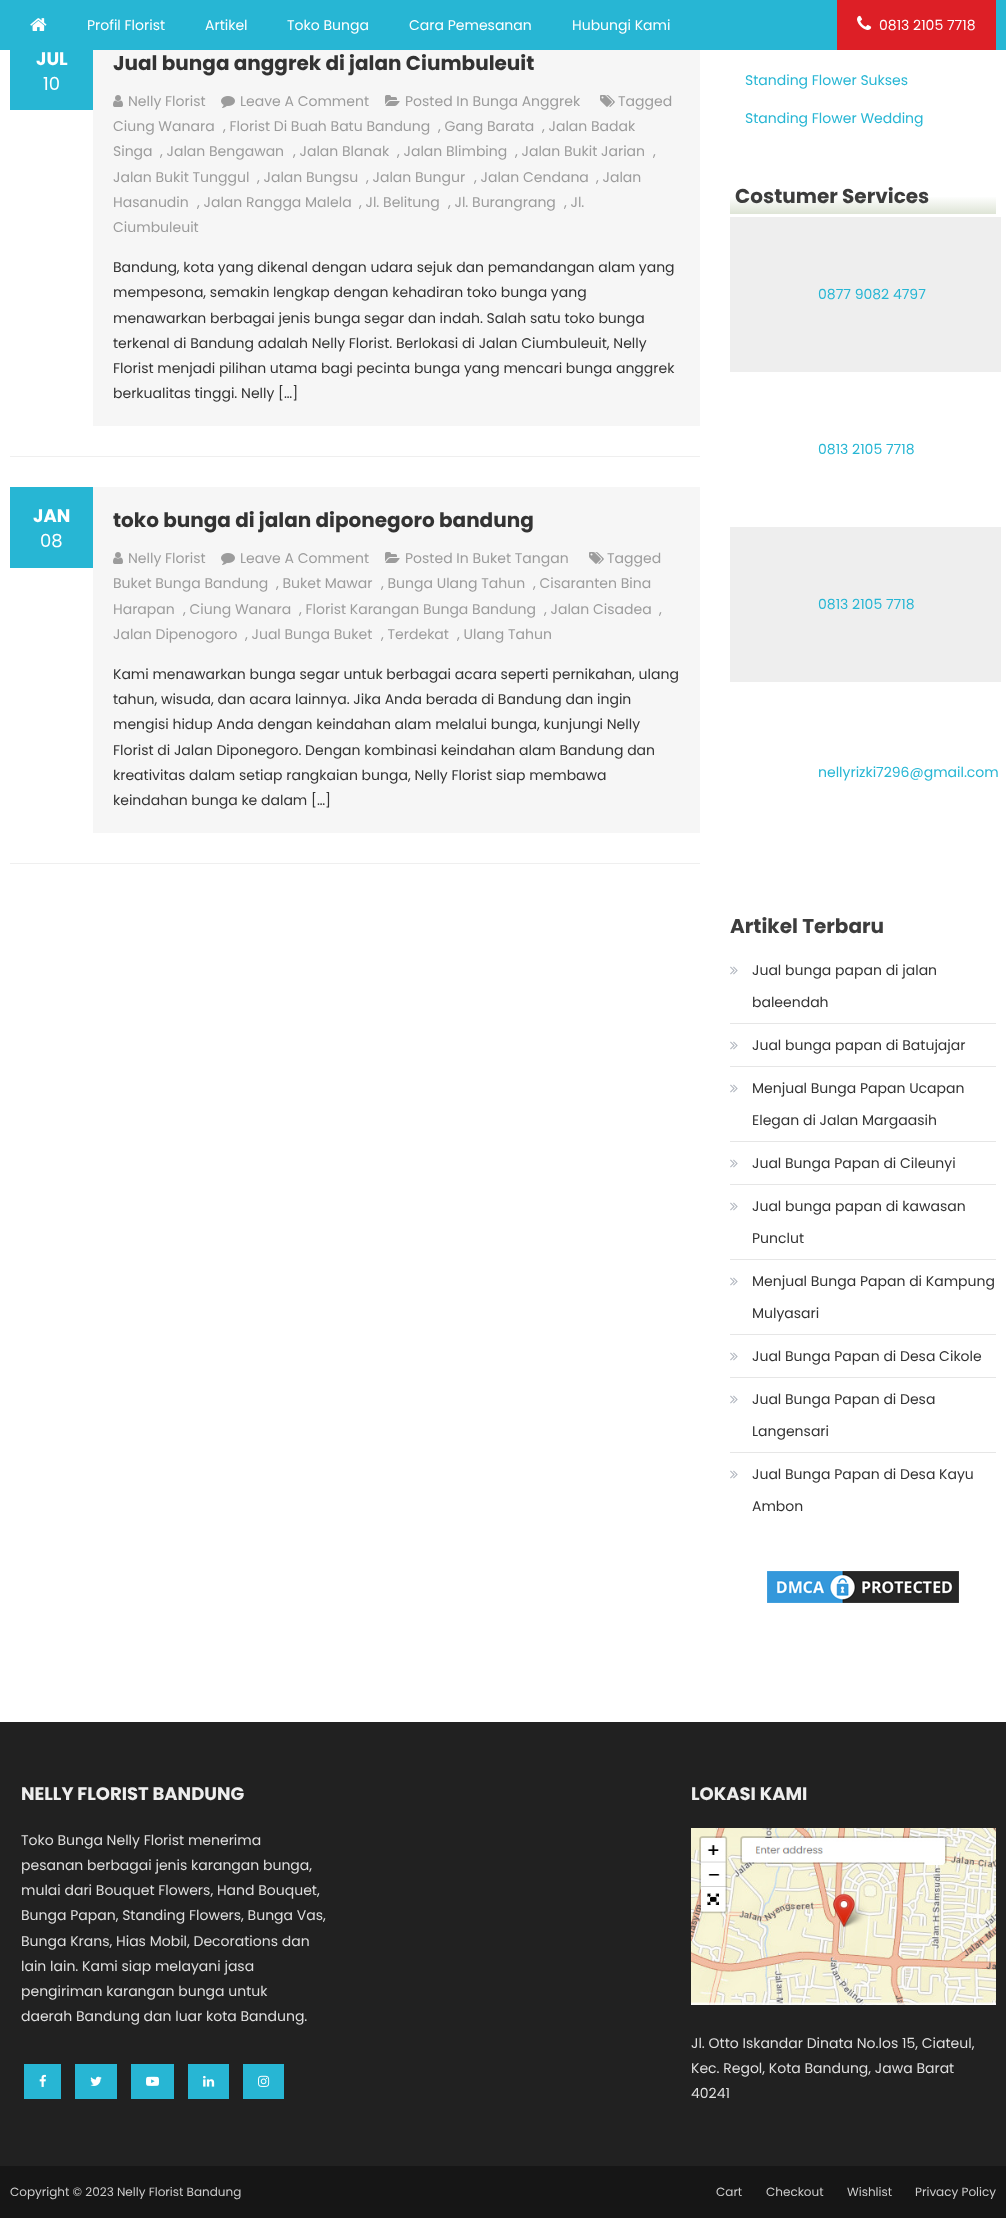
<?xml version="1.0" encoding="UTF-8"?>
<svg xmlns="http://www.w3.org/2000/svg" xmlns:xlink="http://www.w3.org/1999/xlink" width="1006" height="2218">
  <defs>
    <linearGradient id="g1" gradientUnits="userSpaceOnUse" x1="863" y1="178" x2="863" y2="214"><stop offset="0" stop-color="#ffffff" /><stop offset="0.5" stop-color="#ffffff" /><stop offset="1" stop-color="#dee4d6" /></linearGradient>
  </defs>
  <rect width="100%" height="100%" fill="#ffffff" />
  <rect width="1006" height="50" fill="#27b6d4" />
  <image x="30" y="18" width="17" height="13" xlink:href="image1.png" />
  <rect x="837" width="159" height="50" fill="#dd1f26" />
  <image x="857" y="15" width="15" height="15" xlink:href="image2.png" />
  <rect x="10" y="456" width="690" height="1" fill="#efefef" />
  <rect x="10" y="50" width="83" height="60" fill="#27b6d4" />
  <rect x="93" y="50" width="607" height="376" fill="#f6f6f6" />
  <image x="113" y="95" width="10" height="12" xlink:href="image3.png" />
  <image x="221" y="96" width="14" height="12" xlink:href="image4.png" />
  <image x="385" y="95" width="15" height="11" xlink:href="image5.png" />
  <image x="600" y="95" width="15" height="12" xlink:href="image6.png" />
  <rect x="10" y="863" width="690" height="1" fill="#efefef" />
  <rect x="10" y="487" width="83" height="81" fill="#27b6d4" />
  <rect x="93" y="487" width="607" height="346" fill="#f6f6f6" />
  <image x="113" y="552" width="10" height="12" xlink:href="image3.png" />
  <image x="221" y="553" width="14" height="12" xlink:href="image4.png" />
  <image x="385" y="552" width="15" height="11" xlink:href="image5.png" />
  <image x="589" y="552" width="15" height="12" xlink:href="image6.png" />
  <rect x="730" y="197" width="266" height="17" fill="url(#g1)" />
  <rect x="730" y="217" width="271" height="155" fill="#eeeeee" />
  <rect x="730" y="527" width="271" height="155" fill="#eeeeee" />
  <rect x="730" y="1023" width="266" height="1" fill="#e6e6e6" />
  <image x="730" y="966" width="8" height="9" xlink:href="image7.png" />
  <rect x="730" y="1066" width="266" height="1" fill="#e6e6e6" />
  <image x="730" y="1041" width="8" height="9" xlink:href="image7.png" />
  <rect x="730" y="1141" width="266" height="1" fill="#e6e6e6" />
  <image x="730" y="1084" width="8" height="9" xlink:href="image7.png" />
  <rect x="730" y="1184" width="266" height="1" fill="#e6e6e6" />
  <image x="730" y="1159" width="8" height="9" xlink:href="image7.png" />
  <rect x="730" y="1259" width="266" height="1" fill="#e6e6e6" />
  <image x="730" y="1202" width="8" height="9" xlink:href="image7.png" />
  <rect x="730" y="1334" width="266" height="1" fill="#e6e6e6" />
  <image x="730" y="1277" width="8" height="9" xlink:href="image7.png" />
  <rect x="730" y="1377" width="266" height="1" fill="#e6e6e6" />
  <image x="730" y="1352" width="8" height="9" xlink:href="image7.png" />
  <rect x="730" y="1452" width="266" height="1" fill="#e6e6e6" />
  <image x="730" y="1395" width="8" height="9" xlink:href="image7.png" />
  <image x="730" y="1470" width="8" height="9" xlink:href="image7.png" />
  <image x="767" y="1571" width="192" height="32" xlink:href="image8.png" />
  <rect y="1722" width="1006" height="444" fill="#212121" />
  <rect x="24" y="2064" width="37" height="35" fill="#27b6d4" />
  <image x="39" y="2074" width="7" height="13" xlink:href="image9.png" />
  <rect x="75" y="2064" width="42" height="35" fill="#27b6d4" />
  <image x="90" y="2076" width="12" height="10" xlink:href="image10.png" />
  <rect x="131" y="2064" width="43" height="35" fill="#27b6d4" />
  <image x="146" y="2076" width="13" height="10" xlink:href="image11.png" />
  <rect x="188" y="2064" width="41" height="35" fill="#27b6d4" />
  <image x="203" y="2075" width="12" height="12" xlink:href="image12.png" />
  <rect x="243" y="2064" width="41" height="35" fill="#27b6d4" />
  <image x="258" y="2075" width="12" height="12" xlink:href="image13.png" />
  <image x="691" y="1828" width="305" height="177" xlink:href="image14.png" />
  <rect y="2166" width="1006" height="52" fill="#161616" />
  <text x="87" y="30" style="font-family: Poppins; font-size: 14px; fill: #ffffff">Profil Florist</text>
  <text x="205" y="30" style="font-family: Poppins; font-size: 14px; fill: #ffffff">Artikel</text>
  <text x="287" y="30" style="font-family: Poppins; font-size: 14px; fill: #ffffff">Toko Bunga</text>
  <text x="409" y="30" style="font-family: Poppins; font-size: 14px; fill: #ffffff">Cara Pemesanan</text>
  <text x="572" y="30" style="font-family: Poppins; font-size: 14px; fill: #ffffff">Hubungi Kami</text>
  <text x="879" y="30" style="font-family: Poppins; font-size: 14px; fill: #ffffff">0813 2105 7718</text>
  <text x="36" y="65" style="font-family: Poppins; font-size: 18px; font-weight: bold; fill: #ffffff">JUL</text>
  <text x="43" y="90" style="font-family: Poppins; font-size: 18px; fill: #ffffff">10</text>
  <text x="113" y="70" style="font-family: Poppins; font-size: 20px; font-weight: bold; fill: #333333">Jual bunga anggrek di jalan Ciumbuleuit</text>
  <text x="128" y="106" style="font-family: Poppins; font-size: 14px; fill: #9c9c9c">Nelly Florist</text>
  <text x="240" y="106" style="font-family: Poppins; font-size: 14px; fill: #9c9c9c">Leave A Comment</text>
  <text x="405" y="106" style="font-family: Poppins; font-size: 14px; fill: #9c9c9c">Posted In Bunga Anggrek</text>
  <text x="618" y="106" style="font-family: Poppins; font-size: 14px; fill: #9c9c9c">Tagged</text>
  <text x="113" y="131" style="font-family: Poppins; font-size: 14px; fill: #9c9c9c">Ciung Wanara</text>
  <text x="223" y="131" style="font-family: Poppins; font-size: 14px; fill: #9c9c9c">, Florist Di Buah Batu Bandung</text>
  <text x="438" y="131" style="font-family: Poppins; font-size: 14px; fill: #9c9c9c">, Gang Barata</text>
  <text x="542" y="131" style="font-family: Poppins; font-size: 14px; fill: #9c9c9c">, Jalan Badak</text>
  <text x="113" y="156" style="font-family: Poppins; font-size: 14px; fill: #9c9c9c">Singa</text>
  <text x="160" y="156" style="font-family: Poppins; font-size: 14px; fill: #9c9c9c">, Jalan Bengawan</text>
  <text x="293" y="156" style="font-family: Poppins; font-size: 14px; fill: #9c9c9c">, Jalan Blanak</text>
  <text x="397" y="156" style="font-family: Poppins; font-size: 14px; fill: #9c9c9c">, Jalan Blimbing</text>
  <text x="515" y="156" style="font-family: Poppins; font-size: 14px; fill: #9c9c9c">, Jalan Bukit Jarian</text>
  <text x="653" y="156" style="font-family: Poppins; font-size: 14px; fill: #9c9c9c">,</text>
  <text x="113" y="182" style="font-family: Poppins; font-size: 14px; fill: #9c9c9c">Jalan Bukit Tunggul</text>
  <text x="257" y="182" style="font-family: Poppins; font-size: 14px; fill: #9c9c9c">, Jalan Bungsu</text>
  <text x="366" y="182" style="font-family: Poppins; font-size: 14px; fill: #9c9c9c">, Jalan Bungur</text>
  <text x="474" y="182" style="font-family: Poppins; font-size: 14px; fill: #9c9c9c">, Jalan Cendana</text>
  <text x="596" y="182" style="font-family: Poppins; font-size: 14px; fill: #9c9c9c">, Jalan</text>
  <text x="113" y="207" style="font-family: Poppins; font-size: 14px; fill: #9c9c9c">Hasanudin</text>
  <text x="197" y="207" style="font-family: Poppins; font-size: 14px; fill: #9c9c9c">, Jalan Rangga Malela</text>
  <text x="359" y="207" style="font-family: Poppins; font-size: 14px; fill: #9c9c9c">, Jl. Belitung</text>
  <text x="448" y="207" style="font-family: Poppins; font-size: 14px; fill: #9c9c9c">, Jl. Burangrang</text>
  <text x="564" y="207" style="font-family: Poppins; font-size: 14px; fill: #9c9c9c">, Jl.</text>
  <text x="113" y="232" style="font-family: Poppins; font-size: 14px; fill: #9c9c9c">Ciumbuleuit</text>
  <text x="113" y="272" style="font-family: Poppins; font-size: 14px; fill: #333333">Bandung, kota yang dikenal dengan udara sejuk dan pemandangan alam yang</text>
  <text x="113" y="297" style="font-family: Poppins; font-size: 14px; fill: #333333">mempesona, semakin lengkap dengan kehadiran toko bunga yang</text>
  <text x="113" y="323" style="font-family: Poppins; font-size: 14px; fill: #333333">menawarkan berbagai jenis bunga segar dan indah. Salah satu toko bunga</text>
  <text x="113" y="348" style="font-family: Poppins; font-size: 14px; fill: #333333">terkenal di Bandung adalah Nelly Florist. Berlokasi di Jalan Ciumbuleuit, Nelly</text>
  <text x="113" y="373" style="font-family: Poppins; font-size: 14px; fill: #333333">Florist menjadi pilihan utama bagi pecinta bunga yang mencari bunga anggrek</text>
  <text x="113" y="398" style="font-family: Poppins; font-size: 14px; fill: #333333">berkualitas tinggi. Nelly […]</text>
  <text x="33" y="522" style="font-family: Poppins; font-size: 18px; font-weight: bold; fill: #ffffff">JAN</text>
  <text x="40" y="547" style="font-family: Poppins; font-size: 18px; fill: #ffffff">08</text>
  <text x="113" y="527" style="font-family: Poppins; font-size: 20px; font-weight: bold; fill: #333333">toko bunga di jalan diponegoro bandung</text>
  <text x="128" y="563" style="font-family: Poppins; font-size: 14px; fill: #9c9c9c">Nelly Florist</text>
  <text x="240" y="563" style="font-family: Poppins; font-size: 14px; fill: #9c9c9c">Leave A Comment</text>
  <text x="405" y="563" style="font-family: Poppins; font-size: 14px; fill: #9c9c9c">Posted In Buket Tangan</text>
  <text x="607" y="563" style="font-family: Poppins; font-size: 14px; fill: #9c9c9c">Tagged</text>
  <text x="113" y="588" style="font-family: Poppins; font-size: 14px; fill: #9c9c9c">Buket Bunga Bandung</text>
  <text x="276" y="588" style="font-family: Poppins; font-size: 14px; fill: #9c9c9c">, Buket Mawar</text>
  <text x="381" y="588" style="font-family: Poppins; font-size: 14px; fill: #9c9c9c">, Bunga Ulang Tahun</text>
  <text x="533" y="588" style="font-family: Poppins; font-size: 14px; fill: #9c9c9c">, Cisaranten Bina</text>
  <text x="113" y="614" style="font-family: Poppins; font-size: 14px; fill: #9c9c9c">Harapan</text>
  <text x="183" y="614" style="font-family: Poppins; font-size: 14px; fill: #9c9c9c">, Ciung Wanara</text>
  <text x="299" y="614" style="font-family: Poppins; font-size: 14px; fill: #9c9c9c">, Florist Karangan Bunga Bandung</text>
  <text x="544" y="614" style="font-family: Poppins; font-size: 14px; fill: #9c9c9c">, Jalan Cisadea</text>
  <text x="659" y="614" style="font-family: Poppins; font-size: 14px; fill: #9c9c9c">,</text>
  <text x="113" y="639" style="font-family: Poppins; font-size: 14px; fill: #9c9c9c">Jalan Dipenogoro</text>
  <text x="245" y="639" style="font-family: Poppins; font-size: 14px; fill: #9c9c9c">, Jual Bunga Buket</text>
  <text x="381" y="639" style="font-family: Poppins; font-size: 14px; fill: #9c9c9c">, Terdekat</text>
  <text x="457" y="639" style="font-family: Poppins; font-size: 14px; fill: #9c9c9c">, Ulang Tahun</text>
  <text x="113" y="679" style="font-family: Poppins; font-size: 14px; fill: #333333">Kami menawarkan bunga segar untuk berbagai acara seperti pernikahan, ulang</text>
  <text x="113" y="704" style="font-family: Poppins; font-size: 14px; fill: #333333">tahun, wisuda, dan acara lainnya. Jika Anda berada di Bandung dan ingin</text>
  <text x="113" y="729" style="font-family: Poppins; font-size: 14px; fill: #333333">mengisi hidup Anda dengan keindahan alam melalui bunga, kunjungi Nelly</text>
  <text x="113" y="755" style="font-family: Poppins; font-size: 14px; fill: #333333">Florist di Jalan Diponegoro. Dengan kombinasi keindahan alam Bandung dan</text>
  <text x="113" y="780" style="font-family: Poppins; font-size: 14px; fill: #333333">kreativitas dalam setiap rangkaian bunga, Nelly Florist siap membawa</text>
  <text x="113" y="805" style="font-family: Poppins; font-size: 14px; fill: #333333">keindahan bunga ke dalam […]</text>
  <text x="745" y="85" style="font-family: Poppins; font-size: 14px; fill: #27b6d4">Standing Flower Sukses</text>
  <text x="745" y="123" style="font-family: Poppins; font-size: 14px; fill: #27b6d4">Standing Flower Wedding</text>
  <text x="735" y="203" style="font-family: Poppins; font-size: 20px; font-weight: bold; fill: #3d3d3d">Costumer Services</text>
  <text x="818" y="299" style="font-family: Poppins; font-size: 14px; fill: #27b6d4">0877 9082 4797</text>
  <text x="818" y="454" style="font-family: Poppins; font-size: 14px; fill: #27b6d4">0813 2105 7718</text>
  <text x="818" y="609" style="font-family: Poppins; font-size: 14px; fill: #27b6d4">0813 2105 7718</text>
  <text x="818" y="777" style="font-family: Poppins; font-size: 14px; fill: #27b6d4">nellyrizki7296@gmail.com</text>
  <text x="730" y="933" style="font-family: Poppins; font-size: 20px; font-weight: bold; fill: #3d3d3d">Artikel Terbaru</text>
  <text x="752" y="975" style="font-family: Poppins; font-size: 14px; fill: #333333">Jual bunga papan di jalan</text>
  <text x="752" y="1007" style="font-family: Poppins; font-size: 14px; fill: #333333">baleendah</text>
  <text x="752" y="1050" style="font-family: Poppins; font-size: 14px; fill: #333333">Jual bunga papan di Batujajar</text>
  <text x="752" y="1093" style="font-family: Poppins; font-size: 14px; fill: #333333">Menjual Bunga Papan Ucapan</text>
  <text x="752" y="1125" style="font-family: Poppins; font-size: 14px; fill: #333333">Elegan di Jalan Margaasih</text>
  <text x="752" y="1168" style="font-family: Poppins; font-size: 14px; fill: #333333">Jual Bunga Papan di Cileunyi</text>
  <text x="752" y="1211" style="font-family: Poppins; font-size: 14px; fill: #333333">Jual bunga papan di kawasan</text>
  <text x="752" y="1243" style="font-family: Poppins; font-size: 14px; fill: #333333">Punclut</text>
  <text x="752" y="1286" style="font-family: Poppins; font-size: 14px; fill: #333333">Menjual Bunga Papan di Kampung</text>
  <text x="752" y="1318" style="font-family: Poppins; font-size: 14px; fill: #333333">Mulyasari</text>
  <text x="752" y="1361" style="font-family: Poppins; font-size: 14px; fill: #333333">Jual Bunga Papan di Desa Cikole</text>
  <text x="752" y="1404" style="font-family: Poppins; font-size: 14px; fill: #333333">Jual Bunga Papan di Desa</text>
  <text x="752" y="1436" style="font-family: Poppins; font-size: 14px; fill: #333333">Langensari</text>
  <text x="752" y="1479" style="font-family: Poppins; font-size: 14px; fill: #333333">Jual Bunga Papan di Desa Kayu</text>
  <text x="752" y="1511" style="font-family: Poppins; font-size: 14px; fill: #333333">Ambon</text>
  <text x="21" y="1800" style="font-family: Poppins; font-size: 18px; font-weight: bold; fill: #eeeeee">NELLY FLORIST BANDUNG</text>
  <text x="21" y="1845" style="font-family: Poppins; font-size: 14px; fill: #dfdfdf">Toko Bunga Nelly Florist menerima</text>
  <text x="21" y="1870" style="font-family: Poppins; font-size: 14px; fill: #dfdfdf">pesanan berbagai jenis karangan bunga,</text>
  <text x="21" y="1895" style="font-family: Poppins; font-size: 14px; fill: #dfdfdf">mulai dari Bouquet Flowers, Hand Bouquet,</text>
  <text x="21" y="1920" style="font-family: Poppins; font-size: 14px; fill: #dfdfdf">Bunga Papan, Standing Flowers, Bunga Vas,</text>
  <text x="21" y="1946" style="font-family: Poppins; font-size: 14px; fill: #dfdfdf">Bunga Krans, Hias Mobil, Decorations dan</text>
  <text x="21" y="1971" style="font-family: Poppins; font-size: 14px; fill: #dfdfdf">lain lain. Kami siap melayani jasa</text>
  <text x="21" y="1996" style="font-family: Poppins; font-size: 14px; fill: #dfdfdf">pengiriman karangan bunga untuk</text>
  <text x="21" y="2021" style="font-family: Poppins; font-size: 14px; fill: #dfdfdf">daerah Bandung dan luar kota Bandung.</text>
  <text x="691" y="1800" style="font-family: Poppins; font-size: 18px; font-weight: bold; fill: #eeeeee">LOKASI KAMI</text>
  <text x="691" y="2048" style="font-family: Poppins; font-size: 14px; fill: #dfdfdf">Jl. Otto Iskandar Dinata No.los 15, Ciateul,</text>
  <text x="691" y="2073" style="font-family: Poppins; font-size: 14px; fill: #dfdfdf">Kec. Regol, Kota Bandung, Jawa Barat</text>
  <text x="691" y="2098" style="font-family: Poppins; font-size: 14px; fill: #dfdfdf">40241</text>
  <text x="10" y="2196" style="font-family: Poppins; font-size: 12px; fill: #cccccc">Copyright © 2023 Nelly Florist Bandung</text>
  <text x="716" y="2196" style="font-family: Poppins; font-size: 12px; fill: #cccccc">Cart</text>
  <text x="766" y="2196" style="font-family: Poppins; font-size: 12px; fill: #cccccc">Checkout</text>
  <text x="847" y="2196" style="font-family: Poppins; font-size: 12px; fill: #cccccc">Wishlist</text>
  <text x="915" y="2196" style="font-family: Poppins; font-size: 12px; fill: #cccccc">Privacy Policy</text>
</svg>
